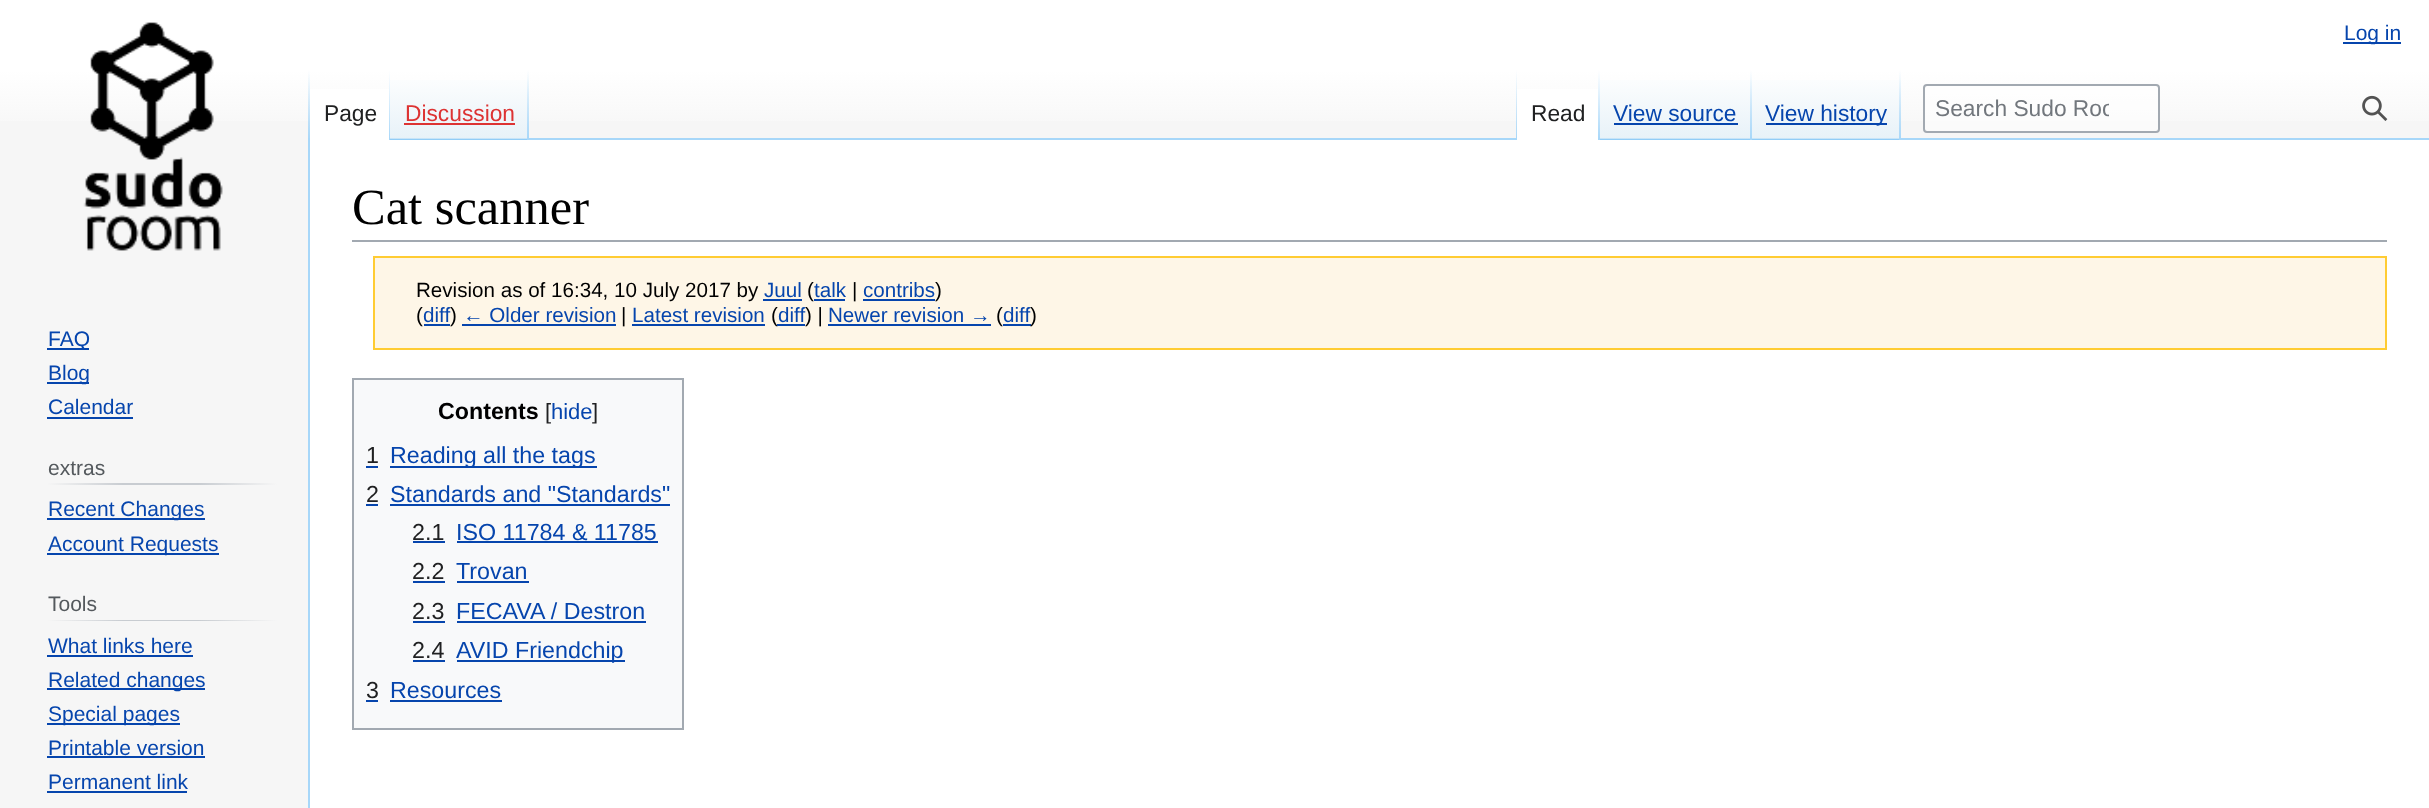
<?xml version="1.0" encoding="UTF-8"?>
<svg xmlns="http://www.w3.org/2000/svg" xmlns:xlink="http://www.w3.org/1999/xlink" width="2429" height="808">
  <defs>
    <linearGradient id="g1" gradientUnits="userSpaceOnUse" x1="1215" y1="0" x2="1215" y2="140"><stop offset="0.5" stop-color="#ffffff" /><stop offset="1" stop-color="#f6f6f6" /></linearGradient>
    <linearGradient id="g2" gradientUnits="userSpaceOnUse" x1="309" y1="70" x2="309" y2="140"><stop offset="0" stop-color="#a7d7f9" stop-opacity="0" /><stop offset="1" stop-color="#a7d7f9" /></linearGradient>
    <linearGradient id="g3" gradientUnits="userSpaceOnUse" x1="389" y1="70" x2="389" y2="140"><stop offset="0" stop-color="#ffffff" /><stop offset="1" stop-color="#a7d7f9" /></linearGradient>
    <linearGradient id="g4" gradientUnits="userSpaceOnUse" x1="459" y1="140" x2="459" y2="70"><stop offset="0" stop-color="#77c1f6" /><stop offset="0.03" stop-color="#e8f2f8" /><stop offset="1" stop-color="#ffffff" /></linearGradient>
    <linearGradient id="g5" gradientUnits="userSpaceOnUse" x1="528" y1="70" x2="528" y2="140"><stop offset="0" stop-color="#a7d7f9" stop-opacity="0" /><stop offset="1" stop-color="#a7d7f9" /></linearGradient>
    <linearGradient id="g6" gradientUnits="userSpaceOnUse" x1="1516" y1="70" x2="1516" y2="140"><stop offset="0" stop-color="#a7d7f9" stop-opacity="0" /><stop offset="1" stop-color="#a7d7f9" /></linearGradient>
    <linearGradient id="g7" gradientUnits="userSpaceOnUse" x1="1599" y1="70" x2="1599" y2="140"><stop offset="0" stop-color="#ffffff" /><stop offset="1" stop-color="#a7d7f9" /></linearGradient>
    <linearGradient id="g8" gradientUnits="userSpaceOnUse" x1="1676" y1="140" x2="1676" y2="70"><stop offset="0" stop-color="#77c1f6" /><stop offset="0.03" stop-color="#e8f2f8" /><stop offset="1" stop-color="#ffffff" /></linearGradient>
    <linearGradient id="g9" gradientUnits="userSpaceOnUse" x1="1751" y1="70" x2="1751" y2="140"><stop offset="0" stop-color="#a7d7f9" stop-opacity="0" /><stop offset="1" stop-color="#a7d7f9" /></linearGradient>
    <linearGradient id="g10" gradientUnits="userSpaceOnUse" x1="1826" y1="140" x2="1826" y2="70"><stop offset="0" stop-color="#77c1f6" /><stop offset="0.03" stop-color="#e8f2f8" /><stop offset="1" stop-color="#ffffff" /></linearGradient>
    <linearGradient id="g11" gradientUnits="userSpaceOnUse" x1="1900" y1="70" x2="1900" y2="140"><stop offset="0" stop-color="#a7d7f9" stop-opacity="0" /><stop offset="1" stop-color="#a7d7f9" /></linearGradient>
    <linearGradient id="g12" gradientUnits="userSpaceOnUse" x1="47" y1="484" x2="277" y2="484"><stop offset="0" stop-color="#f6f6f6" /><stop offset="0.33" stop-color="#c8ccd1" /><stop offset="0.66" stop-color="#c8ccd1" /><stop offset="1" stop-color="#f6f6f6" /></linearGradient>
    <linearGradient id="g13" gradientUnits="userSpaceOnUse" x1="47" y1="620" x2="277" y2="620"><stop offset="0" stop-color="#f6f6f6" /><stop offset="0.33" stop-color="#c8ccd1" /><stop offset="0.66" stop-color="#c8ccd1" /><stop offset="1" stop-color="#f6f6f6" /></linearGradient>
    <clipPath id="clip1"><rect x="1936" y="96" width="173" height="27" /></clipPath>
  </defs>
  <rect width="100%" height="100%" fill="#f6f6f6" />
  <rect width="2429" height="121" fill="url(#g1)" />
  <rect x="2343" y="42" width="58" height="2" fill="#0645ad" />
  <rect x="308" y="138" width="2" height="670" fill="#a7d7f9" />
  <rect x="308" y="70" width="2" height="70" fill="url(#g2)" />
  <rect x="310" y="89" width="79" height="51" fill="#ffffff" />
  <rect x="389" y="70" width="1" height="70" fill="url(#g3)" />
  <rect x="390" y="80" width="139" height="60" fill="url(#g4)" />
  <rect x="527" y="70" width="2" height="70" fill="url(#g5)" />
  <rect x="404" y="123" width="111" height="2" fill="#dd3333" />
  <rect x="529" y="138" width="1900" height="2" fill="#a7d7f9" />
  <rect x="1516" y="70" width="1" height="70" fill="url(#g6)" />
  <rect x="1517" y="89" width="81" height="51" fill="#ffffff" />
  <rect x="1598" y="70" width="2" height="70" fill="url(#g7)" />
  <rect x="1600" y="80" width="152" height="60" fill="url(#g8)" />
  <rect x="1750" y="70" width="2" height="70" fill="url(#g9)" />
  <rect x="1614" y="123" width="124" height="2" fill="#0645ad" />
  <rect x="1752" y="80" width="149" height="60" fill="url(#g10)" />
  <rect x="1899" y="70" width="2" height="70" fill="url(#g11)" />
  <rect x="1766" y="123" width="121" height="2" fill="#0645ad" />
  <rect x="1924" y="85" width="235" height="47" rx="3" fill="#ffffff" fill-opacity="0.5" stroke="#a2a9b1" stroke-width="2" />
  <image x="2362" y="95" width="26" height="26" xlink:href="image1.png" />
  <image x="83" y="22" width="140" height="229" xlink:href="image2.png" />
  <rect x="47" y="348" width="42" height="2" fill="#0645ad" />
  <rect x="47" y="382" width="42" height="2" fill="#0645ad" />
  <rect x="47" y="417" width="86" height="2" fill="#0645ad" />
  <rect x="47" y="483" width="230" height="2" fill="url(#g12)" />
  <rect x="47" y="518" width="158" height="2" fill="#0645ad" />
  <rect x="47" y="553" width="172" height="2" fill="#0645ad" />
  <rect x="47" y="620" width="230" height="1" fill="url(#g13)" />
  <rect x="47" y="655" width="146" height="2" fill="#0645ad" />
  <rect x="47" y="688" width="158" height="2" fill="#0645ad" />
  <rect x="47" y="723" width="133" height="2" fill="#0645ad" />
  <rect x="47" y="756" width="158" height="2" fill="#0645ad" />
  <rect x="47" y="791" width="140" height="2" fill="#0645ad" />
  <rect x="310" y="140" width="2119" height="668" fill="#ffffff" />
  <rect x="352" y="240" width="2035" height="2" fill="#a2a9b1" />
  <rect x="374" y="257" width="2012" height="92" fill="#fef6e7" stroke="#ffcc33" stroke-width="2" />
  <rect x="763" y="299" width="39" height="2" fill="#0645ad" />
  <rect x="814" y="299" width="31" height="2" fill="#0645ad" />
  <rect x="863" y="299" width="72" height="2" fill="#0645ad" />
  <rect x="424" y="324" width="26" height="2" fill="#0645ad" />
  <rect x="462" y="324" width="154" height="2" fill="#0645ad" />
  <rect x="632" y="324" width="133" height="2" fill="#0645ad" />
  <rect x="828" y="324" width="163" height="2" fill="#0645ad" />
  <rect x="353" y="379" width="330" height="350" fill="#f8f9fa" stroke="#a2a9b1" stroke-width="2" />
  <rect x="366" y="466" width="12" height="2" fill="#0645ad" />
  <rect x="390" y="466" width="207" height="2" fill="#0645ad" />
  <rect x="366" y="504" width="12" height="2" fill="#0645ad" />
  <rect x="390" y="504" width="280" height="2" fill="#0645ad" />
  <rect x="413" y="541" width="32" height="2" fill="#0645ad" />
  <rect x="457" y="541" width="201" height="2" fill="#0645ad" />
  <rect x="413" y="581" width="32" height="2" fill="#0645ad" />
  <rect x="457" y="581" width="72" height="2" fill="#0645ad" />
  <rect x="413" y="621" width="32" height="2" fill="#0645ad" />
  <rect x="457" y="621" width="189" height="2" fill="#0645ad" />
  <rect x="413" y="660" width="32" height="2" fill="#0645ad" />
  <rect x="457" y="660" width="168" height="2" fill="#0645ad" />
  <rect x="366" y="700" width="12" height="2" fill="#0645ad" />
  <rect x="390" y="700" width="112" height="2" fill="#0645ad" />
  <text x="2344" y="40" style="font-family: Liberation Sans; font-size: 21px; fill: #0645ad">Log in</text>
  <text x="324" y="121" style="font-family: Liberation Sans; font-size: 22.75px; fill: #202122">Page</text>
  <text x="405" y="121" style="font-family: Liberation Sans; font-size: 22.75px; fill: #dd3333">Discussion</text>
  <text x="1531" y="121" style="font-family: Liberation Sans; font-size: 22.75px; fill: #202122">Read</text>
  <text x="1613" y="121" style="font-family: Liberation Sans; font-size: 22.75px; fill: #0645ad">View source</text>
  <text x="1765" y="121" style="font-family: Liberation Sans; font-size: 22.75px; fill: #0645ad">View history</text>
  <g clip-path="url(#clip1)">
    <text x="1935" y="116" style="font-family: Liberation Sans; font-size: 22.75px; fill: #72777d">Search Sudo Roo</text>
  </g>
  <text x="48" y="346" style="font-family: Liberation Sans; font-size: 21px; fill: #0645ad">FAQ</text>
  <text x="48" y="380" style="font-family: Liberation Sans; font-size: 21px; fill: #0645ad">Blog</text>
  <text x="48" y="414" style="font-family: Liberation Sans; font-size: 21px; fill: #0645ad">Calendar</text>
  <text x="48" y="475" style="font-family: Liberation Sans; font-size: 21px; fill: #54595d">extras</text>
  <text x="48" y="516" style="font-family: Liberation Sans; font-size: 21px; fill: #0645ad">Recent Changes</text>
  <text x="48" y="551" style="font-family: Liberation Sans; font-size: 21px; fill: #0645ad">Account Requests</text>
  <text x="48" y="611" style="font-family: Liberation Sans; font-size: 21px; fill: #54595d">Tools</text>
  <text x="48" y="653" style="font-family: Liberation Sans; font-size: 21px; fill: #0645ad">What links here</text>
  <text x="48" y="687" style="font-family: Liberation Sans; font-size: 21px; fill: #0645ad">Related changes</text>
  <text x="48" y="721" style="font-family: Liberation Sans; font-size: 21px; fill: #0645ad">Special pages</text>
  <text x="48" y="755" style="font-family: Liberation Sans; font-size: 21px; fill: #0645ad">Printable version</text>
  <text x="48" y="789" style="font-family: Liberation Sans; font-size: 21px; fill: #0645ad">Permanent link</text>
  <text x="352" y="224" style="font-family: Liberation Serif; font-size: 50.5px; fill: #000000">Cat scanner</text>
  <text x="416" y="297" style="font-family: Liberation Sans; font-size: 20.6px; fill: #000000">Revision as of 16:34, 10 July 2017 by</text>
  <text x="764" y="297" style="font-family: Liberation Sans; font-size: 20.6px; fill: #0645ad">Juul</text>
  <text x="807" y="297" style="font-family: Liberation Sans; font-size: 20.6px; fill: #000000">(</text>
  <text x="814" y="297" style="font-family: Liberation Sans; font-size: 20.6px; fill: #0645ad">talk</text>
  <text x="852" y="297" style="font-family: Liberation Sans; font-size: 20.6px; fill: #000000">|</text>
  <text x="863" y="297" style="font-family: Liberation Sans; font-size: 20.6px; fill: #0645ad">contribs</text>
  <text x="935" y="297" style="font-family: Liberation Sans; font-size: 20.6px; fill: #000000">)</text>
  <text x="416" y="322" style="font-family: Liberation Sans; font-size: 20.6px; fill: #000000">(</text>
  <text x="423" y="322" style="font-family: Liberation Sans; font-size: 20.6px; fill: #0645ad">diff</text>
  <text x="450" y="322" style="font-family: Liberation Sans; font-size: 20.6px; fill: #000000">)</text>
  <text x="463" y="322" style="font-family: Liberation Sans; font-size: 20.6px; fill: #0645ad">← Older revision</text>
  <text x="621" y="322" style="font-family: Liberation Sans; font-size: 20.6px; fill: #000000">|</text>
  <text x="632" y="322" style="font-family: Liberation Sans; font-size: 20.6px; fill: #0645ad">Latest revision</text>
  <text x="771" y="322" style="font-family: Liberation Sans; font-size: 20.6px; fill: #000000">(</text>
  <text x="778" y="322" style="font-family: Liberation Sans; font-size: 20.6px; fill: #0645ad">diff</text>
  <rect x="777" y="324" width="28" height="2" fill="#0645ad" />
  <text x="805" y="322" style="font-family: Liberation Sans; font-size: 20.6px; fill: #000000">) |</text>
  <text x="828" y="322" style="font-family: Liberation Sans; font-size: 20.6px; fill: #0645ad">Newer revision →</text>
  <text x="996" y="322" style="font-family: Liberation Sans; font-size: 20.6px; fill: #000000">(</text>
  <text x="1003" y="322" style="font-family: Liberation Sans; font-size: 20.6px; fill: #0645ad">diff</text>
  <rect x="1003" y="324" width="28" height="2" fill="#0645ad" />
  <text x="1030" y="322" style="font-family: Liberation Sans; font-size: 20.6px; fill: #000000">)</text>
  <text x="438" y="419" style="font-family: Liberation Sans; font-size: 23.25px; font-weight: bold; fill: #000000">Contents</text>
  <text x="545" y="419" style="font-family: Liberation Sans; font-size: 22px; fill: #202122">[</text>
  <text x="551" y="419" style="font-family: Liberation Sans; font-size: 22px; fill: #0645ad">hide</text>
  <text x="592" y="419" style="font-family: Liberation Sans; font-size: 22px; fill: #202122">]</text>
  <text x="366" y="463" style="font-family: Liberation Sans; font-size: 23.25px; fill: #202122">1</text>
  <text x="390" y="463" style="font-family: Liberation Sans; font-size: 23.25px; fill: #0645ad">Reading all the tags</text>
  <text x="366" y="502" style="font-family: Liberation Sans; font-size: 23.25px; fill: #202122">2</text>
  <text x="390" y="502" style="font-family: Liberation Sans; font-size: 23.25px; fill: #0645ad">Standards and "Standards"</text>
  <text x="412" y="540" style="font-family: Liberation Sans; font-size: 23.25px; fill: #202122">2.1</text>
  <text x="456" y="540" style="font-family: Liberation Sans; font-size: 23.25px; fill: #0645ad">ISO 11784 &amp; 11785</text>
  <text x="412" y="579" style="font-family: Liberation Sans; font-size: 23.25px; fill: #202122">2.2</text>
  <text x="456" y="579" style="font-family: Liberation Sans; font-size: 23.25px; fill: #0645ad">Trovan</text>
  <text x="412" y="619" style="font-family: Liberation Sans; font-size: 23.25px; fill: #202122">2.3</text>
  <text x="456" y="619" style="font-family: Liberation Sans; font-size: 23.25px; fill: #0645ad">FECAVA / Destron</text>
  <text x="412" y="658" style="font-family: Liberation Sans; font-size: 23.25px; fill: #202122">2.4</text>
  <text x="456" y="658" style="font-family: Liberation Sans; font-size: 23.25px; fill: #0645ad">AVID Friendchip</text>
  <text x="366" y="698" style="font-family: Liberation Sans; font-size: 23.25px; fill: #202122">3</text>
  <text x="390" y="698" style="font-family: Liberation Sans; font-size: 23.25px; fill: #0645ad">Resources</text>
</svg>
